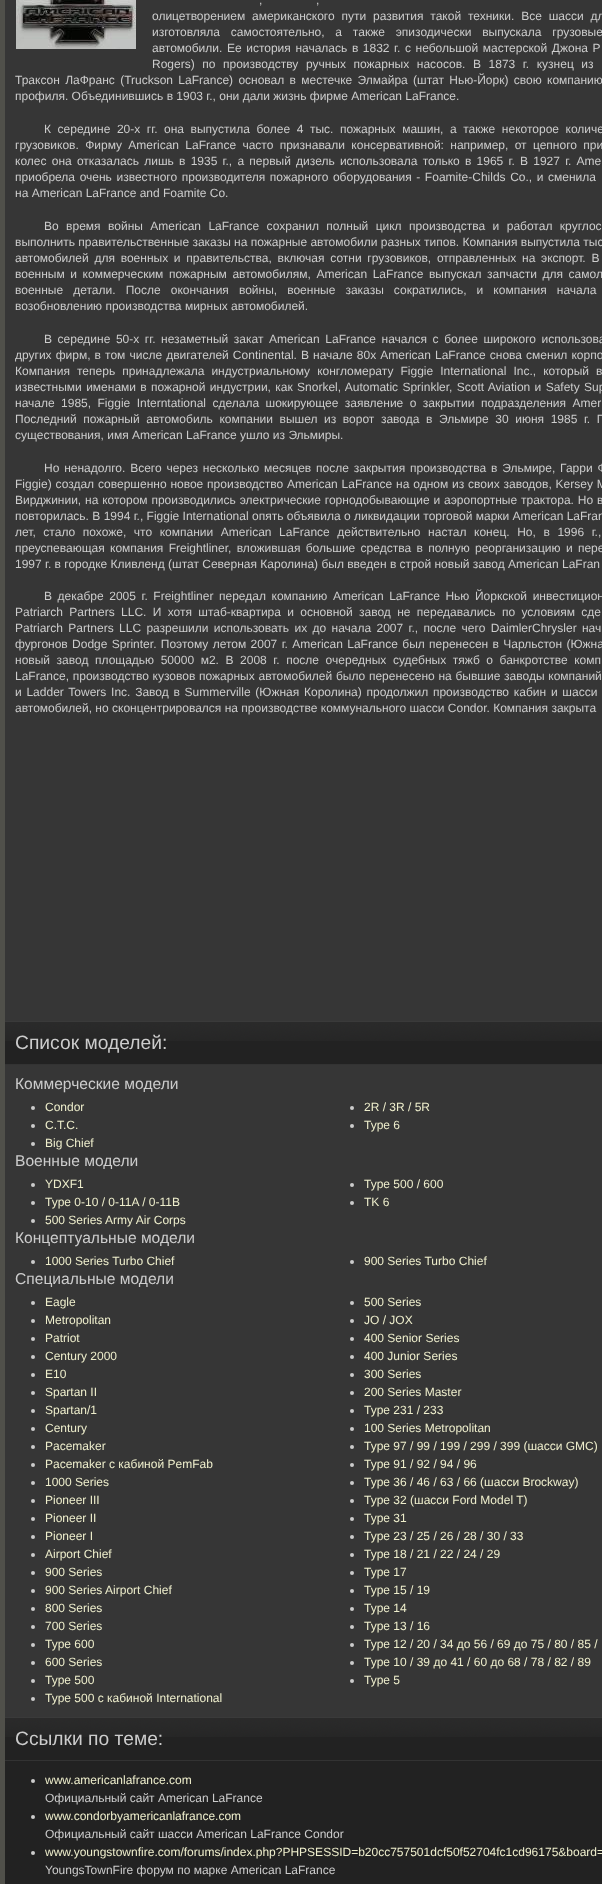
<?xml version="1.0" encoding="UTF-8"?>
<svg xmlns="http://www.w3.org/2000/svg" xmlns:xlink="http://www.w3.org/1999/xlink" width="602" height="1884">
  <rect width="100%" height="100%" fill="#ffffff" />
  <rect x="2.5" y="-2.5" width="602" height="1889" fill="none" stroke="#50504a" stroke-width="5" />
  <rect x="5" width="597" height="1021" fill="#363636" />
  <image x="16" y="0" width="120" height="49" xlink:href="image1.png" />
  <rect x="5" y="1065" width="597" height="652" fill="#363636" />
  <rect x="5" y="1041" width="597" height="23" fill="#222222" />
  <image x="5" y="1022" width="597" height="19" xlink:href="image2.png" />
  <rect x="5" y="1021" width="597" height="1" fill="#3a3a3a" />
  <rect x="5" y="1064" width="597" height="1" fill="#333333" />
  <circle cx="33" cy="1108" r="2" fill="#cccccc" />
  <circle cx="33" cy="1126" r="2" fill="#cccccc" />
  <circle cx="33" cy="1144" r="2" fill="#cccccc" />
  <circle cx="352" cy="1108" r="2" fill="#cccccc" />
  <circle cx="352" cy="1126" r="2" fill="#cccccc" />
  <circle cx="33" cy="1185" r="2" fill="#cccccc" />
  <circle cx="33" cy="1203" r="2" fill="#cccccc" />
  <circle cx="33" cy="1221" r="2" fill="#cccccc" />
  <circle cx="352" cy="1185" r="2" fill="#cccccc" />
  <circle cx="352" cy="1203" r="2" fill="#cccccc" />
  <circle cx="33" cy="1262" r="2" fill="#cccccc" />
  <circle cx="352" cy="1262" r="2" fill="#cccccc" />
  <circle cx="33" cy="1303" r="2" fill="#cccccc" />
  <circle cx="33" cy="1321" r="2" fill="#cccccc" />
  <circle cx="33" cy="1339" r="2" fill="#cccccc" />
  <circle cx="33" cy="1357" r="2" fill="#cccccc" />
  <circle cx="33" cy="1375" r="2" fill="#cccccc" />
  <circle cx="33" cy="1393" r="2" fill="#cccccc" />
  <circle cx="33" cy="1411" r="2" fill="#cccccc" />
  <circle cx="33" cy="1429" r="2" fill="#cccccc" />
  <circle cx="33" cy="1447" r="2" fill="#cccccc" />
  <circle cx="33" cy="1465" r="2" fill="#cccccc" />
  <circle cx="33" cy="1483" r="2" fill="#cccccc" />
  <circle cx="33" cy="1501" r="2" fill="#cccccc" />
  <circle cx="33" cy="1519" r="2" fill="#cccccc" />
  <circle cx="33" cy="1537" r="2" fill="#cccccc" />
  <circle cx="33" cy="1555" r="2" fill="#cccccc" />
  <circle cx="33" cy="1573" r="2" fill="#cccccc" />
  <circle cx="33" cy="1591" r="2" fill="#cccccc" />
  <circle cx="33" cy="1609" r="2" fill="#cccccc" />
  <circle cx="33" cy="1627" r="2" fill="#cccccc" />
  <circle cx="33" cy="1645" r="2" fill="#cccccc" />
  <circle cx="33" cy="1663" r="2" fill="#cccccc" />
  <circle cx="33" cy="1681" r="2" fill="#cccccc" />
  <circle cx="33" cy="1699" r="2" fill="#cccccc" />
  <circle cx="352" cy="1303" r="2" fill="#cccccc" />
  <circle cx="352" cy="1321" r="2" fill="#cccccc" />
  <circle cx="352" cy="1339" r="2" fill="#cccccc" />
  <circle cx="352" cy="1357" r="2" fill="#cccccc" />
  <circle cx="352" cy="1375" r="2" fill="#cccccc" />
  <circle cx="352" cy="1393" r="2" fill="#cccccc" />
  <circle cx="352" cy="1411" r="2" fill="#cccccc" />
  <circle cx="352" cy="1429" r="2" fill="#cccccc" />
  <circle cx="352" cy="1447" r="2" fill="#cccccc" />
  <circle cx="352" cy="1465" r="2" fill="#cccccc" />
  <circle cx="352" cy="1483" r="2" fill="#cccccc" />
  <circle cx="352" cy="1501" r="2" fill="#cccccc" />
  <circle cx="352" cy="1519" r="2" fill="#cccccc" />
  <circle cx="352" cy="1537" r="2" fill="#cccccc" />
  <circle cx="352" cy="1555" r="2" fill="#cccccc" />
  <circle cx="352" cy="1573" r="2" fill="#cccccc" />
  <circle cx="352" cy="1591" r="2" fill="#cccccc" />
  <circle cx="352" cy="1609" r="2" fill="#cccccc" />
  <circle cx="352" cy="1627" r="2" fill="#cccccc" />
  <circle cx="352" cy="1645" r="2" fill="#cccccc" />
  <circle cx="352" cy="1663" r="2" fill="#cccccc" />
  <circle cx="352" cy="1681" r="2" fill="#cccccc" />
  <rect x="5" y="1737" width="597" height="23" fill="#222222" />
  <image x="5" y="1718" width="597" height="19" xlink:href="image2.png" />
  <rect x="5" y="1717" width="597" height="1" fill="#3a3a3a" />
  <rect x="5" y="1761" width="597" height="123" fill="#222222" />
  <rect x="5" y="1760" width="597" height="1" fill="#333333" />
  <circle cx="33" cy="1781" r="2" fill="#cccccc" />
  <circle cx="33" cy="1817" r="2" fill="#cccccc" />
  <circle cx="33" cy="1853" r="2" fill="#cccccc" />
  <text x="259" y="4" word-spacing="4" style="font-family: Liberation Sans; font-size: 12px; fill: #cccccc">,</text>
  <text x="316" y="4" word-spacing="4" style="font-family: Liberation Sans; font-size: 12px; fill: #cccccc">,</text>
  <text x="152" y="20" word-spacing="3.5" style="font-family: Liberation Sans; font-size: 12px; fill: #cccccc">олицетворением американского пути развития такой техники. Все шасси дл</text>
  <text x="152" y="36" word-spacing="7.5" style="font-family: Liberation Sans; font-size: 12px; fill: #cccccc">изготовляла самостоятельно, а также эпизодически выпускала грузовые</text>
  <text x="152" y="52" word-spacing="1.25" style="font-family: Liberation Sans; font-size: 12px; fill: #cccccc">автомобили. Ее история началась в 1832 г. с небольшой мастерской Джона Р</text>
  <text x="152" y="68" word-spacing="4.25" style="font-family: Liberation Sans; font-size: 12px; fill: #cccccc">Rogers) по производству ручных пожарных насосов. В 1873 г. кузнец из</text>
  <text x="15" y="84" word-spacing="2" style="font-family: Liberation Sans; font-size: 12px; fill: #cccccc">Траксон ЛаФранс (Truckson LaFrance) основал в местечке Элмайра (штат Нью-Йорк) свою компанию</text>
  <text x="15" y="100" style="font-family: Liberation Sans; font-size: 12px; fill: #cccccc">профиля. Объединившись в 1903 г., они дали жизнь фирме American LaFrance.</text>
  <text x="44" y="133" word-spacing="3.25" style="font-family: Liberation Sans; font-size: 12px; fill: #cccccc">К середине 20-х гг. она выпустила более 4 тыс. пожарных машин, а также некоторое количе</text>
  <text x="15" y="149" word-spacing="3" style="font-family: Liberation Sans; font-size: 12px; fill: #cccccc">грузовиков. Фирму American LaFrance часто признавали консервативной: например, от цепного при</text>
  <text x="15" y="165" word-spacing="1.9" style="font-family: Liberation Sans; font-size: 12px; fill: #cccccc">колес она отказалась лишь в 1935 г., а первый дизель использовала только в 1965 г. В 1927 г. Ame</text>
  <text x="15" y="181" word-spacing="1.25" style="font-family: Liberation Sans; font-size: 12px; fill: #cccccc">приобрела очень известного производителя пожарного оборудования - Foamite-Childs Co., и сменила</text>
  <text x="15" y="197" style="font-family: Liberation Sans; font-size: 12px; fill: #cccccc">на American LaFrance and Foamite Co.</text>
  <text x="44" y="230" word-spacing="4.1" style="font-family: Liberation Sans; font-size: 12px; fill: #cccccc">Во время войны American LaFrance сохранил полный цикл производства и работал круглос</text>
  <text x="15" y="246" style="font-family: Liberation Sans; font-size: 12px; fill: #cccccc">выполнить правительственные заказы на пожарные автомобили разных типов. Компания выпустила тыс</text>
  <text x="15" y="262" word-spacing="2.4" style="font-family: Liberation Sans; font-size: 12px; fill: #cccccc">автомобилей для военных и правительства, включая сотни грузовиков, отправленных на экспорт. В</text>
  <text x="15" y="278" word-spacing="2.25" style="font-family: Liberation Sans; font-size: 12px; fill: #cccccc">военным и коммерческим пожарным автомобилям, American LaFrance выпускал запчасти для самол</text>
  <text x="15" y="294" word-spacing="6.75" style="font-family: Liberation Sans; font-size: 12px; fill: #cccccc">военные детали. После окончания войны, военные заказы сократились, и компания начала</text>
  <text x="15" y="310" style="font-family: Liberation Sans; font-size: 12px; fill: #cccccc">возобновлению производства мирных автомобилей.</text>
  <text x="44" y="343" word-spacing="2.25" style="font-family: Liberation Sans; font-size: 12px; fill: #cccccc">В середине 50-х гг. незаметный закат American LaFrance начался с более широкого использова</text>
  <text x="15" y="359" word-spacing="0.75" style="font-family: Liberation Sans; font-size: 12px; fill: #cccccc">других фирм, в том числе двигателей Continental. В начале 80х American LaFrance снова сменил корпо</text>
  <text x="15" y="375" word-spacing="3.75" style="font-family: Liberation Sans; font-size: 12px; fill: #cccccc">Компания теперь принадлежала индустриальному конгломерату Figgie International Inc., который в</text>
  <text x="15" y="391" word-spacing="1" style="font-family: Liberation Sans; font-size: 12px; fill: #cccccc">известными именами в пожарной индустрии, как Snorkel, Automatic Sprinkler, Scott Aviation и Safety Sup</text>
  <text x="15" y="407" word-spacing="3.1" style="font-family: Liberation Sans; font-size: 12px; fill: #cccccc">начале 1985, Figgie Interntational сделала шокирующее заявление о закрытии подразделения Ameri</text>
  <text x="15" y="423" word-spacing="3.25" style="font-family: Liberation Sans; font-size: 12px; fill: #cccccc">Последний пожарный автомобиль компании вышел из ворот завода в Эльмире 30 июня 1985 г. П</text>
  <text x="15" y="439" style="font-family: Liberation Sans; font-size: 12px; fill: #cccccc">существования, имя American LaFrance ушло из Эльмиры.</text>
  <text x="44" y="472" word-spacing="1.5" style="font-family: Liberation Sans; font-size: 12px; fill: #cccccc">Но ненадолго. Всего через несколько месяцев после закрытия производства в Эльмире, Гарри Ф</text>
  <text x="15" y="488" word-spacing="0.5" style="font-family: Liberation Sans; font-size: 12px; fill: #cccccc">Figgie) создал совершенно новое производство American LaFrance на одном из своих заводов, Kersey M</text>
  <text x="15" y="504" word-spacing="0.5" style="font-family: Liberation Sans; font-size: 12px; fill: #cccccc">Вирджинии, на котором производились электрические горнодобывающие и аэропортные трактора. Но в</text>
  <text x="15" y="520" style="font-family: Liberation Sans; font-size: 12px; fill: #cccccc">повторилась. В 1994 г., Figgie International опять объявила о ликвидации торговой марки American LaFran</text>
  <text x="15" y="536" word-spacing="4.25" style="font-family: Liberation Sans; font-size: 12px; fill: #cccccc">лет, стало похоже, что компании American LaFrance действительно настал конец. Но, в 1996 г.,</text>
  <text x="15" y="552" word-spacing="2" style="font-family: Liberation Sans; font-size: 12px; fill: #cccccc">преуспевающая компания Freightliner, вложившая большие средства в полную реорганизацию и пере</text>
  <text x="15" y="568" style="font-family: Liberation Sans; font-size: 12px; fill: #cccccc">1997 г. в городке Кливленд (штат Северная Каролина) был введен в строй новый завод American LaFran</text>
  <text x="44" y="600" word-spacing="2.25" style="font-family: Liberation Sans; font-size: 12px; fill: #cccccc">В декабре 2005 г. Freightliner передал компанию American LaFrance Нью Йоркской инвестицион</text>
  <text x="15" y="616" word-spacing="3" style="font-family: Liberation Sans; font-size: 12px; fill: #cccccc">Patriarch Partners LLC. И хотя штаб-квартира и основной завод не передавались по условиям сде</text>
  <text x="15" y="632" word-spacing="2" style="font-family: Liberation Sans; font-size: 12px; fill: #cccccc">Patriarch Partners LLC разрешили использовать их до начала 2007 г., после чего DaimlerChrysler нач</text>
  <text x="15" y="648" word-spacing="1" style="font-family: Liberation Sans; font-size: 12px; fill: #cccccc">фургонов Dodge Sprinter. Поэтому летом 2007 г. American LaFrance был перенесен в Чарльстон (Южна</text>
  <text x="15" y="664" word-spacing="3.25" style="font-family: Liberation Sans; font-size: 12px; fill: #cccccc">новый завод площадью 50000 м2. В 2008 г. после очередных судебных тяжб о банкротстве комп</text>
  <text x="15" y="680" word-spacing="0.4" style="font-family: Liberation Sans; font-size: 12px; fill: #cccccc">LaFrance, производство кузовов пожарных автомобилей было перенесено на бывшие заводы компаний</text>
  <text x="15" y="696" word-spacing="1.4" style="font-family: Liberation Sans; font-size: 12px; fill: #cccccc">и Ladder Towers Inc. Завод в Summerville (Южная Королина) продолжил производство кабин и шасси</text>
  <text x="15" y="712" style="font-family: Liberation Sans; font-size: 12px; fill: #cccccc">автомобилей, но сконцентрировался на производстве коммунального шасси Condor. Компания закрыта</text>
  <text x="15" y="1049" style="font-family: Liberation Sans; font-size: 19.25px; fill: #cccccc">Список моделей:</text>
  <text x="15" y="1089" style="font-family: Liberation Sans; font-size: 15.6px; fill: #cccccc">Коммерческие модели</text>
  <text x="45" y="1111" style="font-family: Liberation Sans; font-size: 12px; fill: #eeeecc">Condor</text>
  <text x="45" y="1129" style="font-family: Liberation Sans; font-size: 12px; fill: #eeeecc">C.T.C.</text>
  <text x="45" y="1147" style="font-family: Liberation Sans; font-size: 12px; fill: #eeeecc">Big Chief</text>
  <text x="364" y="1111" style="font-family: Liberation Sans; font-size: 12px; fill: #eeeecc">2R / 3R / 5R</text>
  <text x="364" y="1129" style="font-family: Liberation Sans; font-size: 12px; fill: #eeeecc">Type 6</text>
  <text x="15" y="1166" style="font-family: Liberation Sans; font-size: 15.6px; fill: #cccccc">Военные модели</text>
  <text x="45" y="1188" style="font-family: Liberation Sans; font-size: 12px; fill: #eeeecc">YDXF1</text>
  <text x="45" y="1206" style="font-family: Liberation Sans; font-size: 12px; fill: #eeeecc">Type 0-10 / 0-11A / 0-11B</text>
  <text x="45" y="1224" style="font-family: Liberation Sans; font-size: 12px; fill: #eeeecc">500 Series Army Air Corps</text>
  <text x="364" y="1188" style="font-family: Liberation Sans; font-size: 12px; fill: #eeeecc">Type 500 / 600</text>
  <text x="364" y="1206" style="font-family: Liberation Sans; font-size: 12px; fill: #eeeecc">TK 6</text>
  <text x="15" y="1243" style="font-family: Liberation Sans; font-size: 15.6px; fill: #cccccc">Концептуальные модели</text>
  <text x="45" y="1265" style="font-family: Liberation Sans; font-size: 12px; fill: #eeeecc">1000 Series Turbo Chief</text>
  <text x="364" y="1265" style="font-family: Liberation Sans; font-size: 12px; fill: #eeeecc">900 Series Turbo Chief</text>
  <text x="15" y="1284" style="font-family: Liberation Sans; font-size: 15.6px; fill: #cccccc">Специальные модели</text>
  <text x="45" y="1306" style="font-family: Liberation Sans; font-size: 12px; fill: #eeeecc">Eagle</text>
  <text x="45" y="1324" style="font-family: Liberation Sans; font-size: 12px; fill: #eeeecc">Metropolitan</text>
  <text x="45" y="1342" style="font-family: Liberation Sans; font-size: 12px; fill: #eeeecc">Patriot</text>
  <text x="45" y="1360" style="font-family: Liberation Sans; font-size: 12px; fill: #eeeecc">Century 2000</text>
  <text x="45" y="1378" style="font-family: Liberation Sans; font-size: 12px; fill: #eeeecc">E10</text>
  <text x="45" y="1396" style="font-family: Liberation Sans; font-size: 12px; fill: #eeeecc">Spartan II</text>
  <text x="45" y="1414" style="font-family: Liberation Sans; font-size: 12px; fill: #eeeecc">Spartan/1</text>
  <text x="45" y="1432" style="font-family: Liberation Sans; font-size: 12px; fill: #eeeecc">Century</text>
  <text x="45" y="1450" style="font-family: Liberation Sans; font-size: 12px; fill: #eeeecc">Pacemaker</text>
  <text x="45" y="1468" style="font-family: Liberation Sans; font-size: 12px; fill: #eeeecc">Pacemaker с кабиной PemFab</text>
  <text x="45" y="1486" style="font-family: Liberation Sans; font-size: 12px; fill: #eeeecc">1000 Series</text>
  <text x="45" y="1504" style="font-family: Liberation Sans; font-size: 12px; fill: #eeeecc">Pioneer III</text>
  <text x="45" y="1522" style="font-family: Liberation Sans; font-size: 12px; fill: #eeeecc">Pioneer II</text>
  <text x="45" y="1540" style="font-family: Liberation Sans; font-size: 12px; fill: #eeeecc">Pioneer I</text>
  <text x="45" y="1558" style="font-family: Liberation Sans; font-size: 12px; fill: #eeeecc">Airport Chief</text>
  <text x="45" y="1576" style="font-family: Liberation Sans; font-size: 12px; fill: #eeeecc">900 Series</text>
  <text x="45" y="1594" style="font-family: Liberation Sans; font-size: 12px; fill: #eeeecc">900 Series Airport Chief</text>
  <text x="45" y="1612" style="font-family: Liberation Sans; font-size: 12px; fill: #eeeecc">800 Series</text>
  <text x="45" y="1630" style="font-family: Liberation Sans; font-size: 12px; fill: #eeeecc">700 Series</text>
  <text x="45" y="1648" style="font-family: Liberation Sans; font-size: 12px; fill: #eeeecc">Type 600</text>
  <text x="45" y="1666" style="font-family: Liberation Sans; font-size: 12px; fill: #eeeecc">600 Series</text>
  <text x="45" y="1684" style="font-family: Liberation Sans; font-size: 12px; fill: #eeeecc">Type 500</text>
  <text x="45" y="1702" style="font-family: Liberation Sans; font-size: 12px; fill: #eeeecc">Type 500 с кабиной International</text>
  <text x="364" y="1306" style="font-family: Liberation Sans; font-size: 12px; fill: #eeeecc">500 Series</text>
  <text x="364" y="1324" style="font-family: Liberation Sans; font-size: 12px; fill: #eeeecc">JO / JOX</text>
  <text x="364" y="1342" style="font-family: Liberation Sans; font-size: 12px; fill: #eeeecc">400 Senior Series</text>
  <text x="364" y="1360" style="font-family: Liberation Sans; font-size: 12px; fill: #eeeecc">400 Junior Series</text>
  <text x="364" y="1378" style="font-family: Liberation Sans; font-size: 12px; fill: #eeeecc">300 Series</text>
  <text x="364" y="1396" style="font-family: Liberation Sans; font-size: 12px; fill: #eeeecc">200 Series Master</text>
  <text x="364" y="1414" style="font-family: Liberation Sans; font-size: 12px; fill: #eeeecc">Type 231 / 233</text>
  <text x="364" y="1432" style="font-family: Liberation Sans; font-size: 12px; fill: #eeeecc">100 Series Metropolitan</text>
  <text x="364" y="1450" style="font-family: Liberation Sans; font-size: 12px; fill: #eeeecc">Type 97 / 99 / 199 / 299 / 399 (шасси GMC)</text>
  <text x="364" y="1468" style="font-family: Liberation Sans; font-size: 12px; fill: #eeeecc">Type 91 / 92 / 94 / 96</text>
  <text x="364" y="1486" style="font-family: Liberation Sans; font-size: 12px; fill: #eeeecc">Type 36 / 46 / 63 / 66 (шасси Brockway)</text>
  <text x="364" y="1504" style="font-family: Liberation Sans; font-size: 12px; fill: #eeeecc">Type 32 (шасси Ford Model T)</text>
  <text x="364" y="1522" style="font-family: Liberation Sans; font-size: 12px; fill: #eeeecc">Type 31</text>
  <text x="364" y="1540" style="font-family: Liberation Sans; font-size: 12px; fill: #eeeecc">Type 23 / 25 / 26 / 28 / 30 / 33</text>
  <text x="364" y="1558" style="font-family: Liberation Sans; font-size: 12px; fill: #eeeecc">Type 18 / 21 / 22 / 24 / 29</text>
  <text x="364" y="1576" style="font-family: Liberation Sans; font-size: 12px; fill: #eeeecc">Type 17</text>
  <text x="364" y="1594" style="font-family: Liberation Sans; font-size: 12px; fill: #eeeecc">Type 15 / 19</text>
  <text x="364" y="1612" style="font-family: Liberation Sans; font-size: 12px; fill: #eeeecc">Type 14</text>
  <text x="364" y="1630" style="font-family: Liberation Sans; font-size: 12px; fill: #eeeecc">Type 13 / 16</text>
  <text x="364" y="1648" style="font-family: Liberation Sans; font-size: 12px; fill: #eeeecc">Type 12 / 20 / 34 до 56 / 69 до 75 / 80 / 85 /</text>
  <text x="364" y="1666" style="font-family: Liberation Sans; font-size: 12px; fill: #eeeecc">Type 10 / 39 до 41 / 60 до 68 / 78 / 82 / 89</text>
  <text x="364" y="1684" style="font-family: Liberation Sans; font-size: 12px; fill: #eeeecc">Type 5</text>
  <text x="15" y="1745" style="font-family: Liberation Sans; font-size: 19.25px; fill: #cccccc">Ссылки по теме:</text>
  <text x="45" y="1784" style="font-family: Liberation Sans; font-size: 12px; fill: #eeeecc">www.americanlafrance.com</text>
  <text x="45" y="1802" style="font-family: Liberation Sans; font-size: 12px; fill: #cccccc">Официальный сайт American LaFrance</text>
  <text x="45" y="1820" style="font-family: Liberation Sans; font-size: 12px; fill: #eeeecc">www.condorbyamericanlafrance.com</text>
  <text x="45" y="1838" style="font-family: Liberation Sans; font-size: 12px; fill: #cccccc">Официальный сайт шасси American LaFrance Condor</text>
  <text x="45" y="1856" style="font-family: Liberation Sans; font-size: 12px; fill: #eeeecc">www.youngstownfire.com/forums/index.php?PHPSESSID=b20cc757501dcf50f52704fc1cd96175&amp;board=</text>
  <text x="45" y="1874" style="font-family: Liberation Sans; font-size: 12px; fill: #cccccc">YoungsTownFire форум по марке American LaFrance</text>
</svg>
